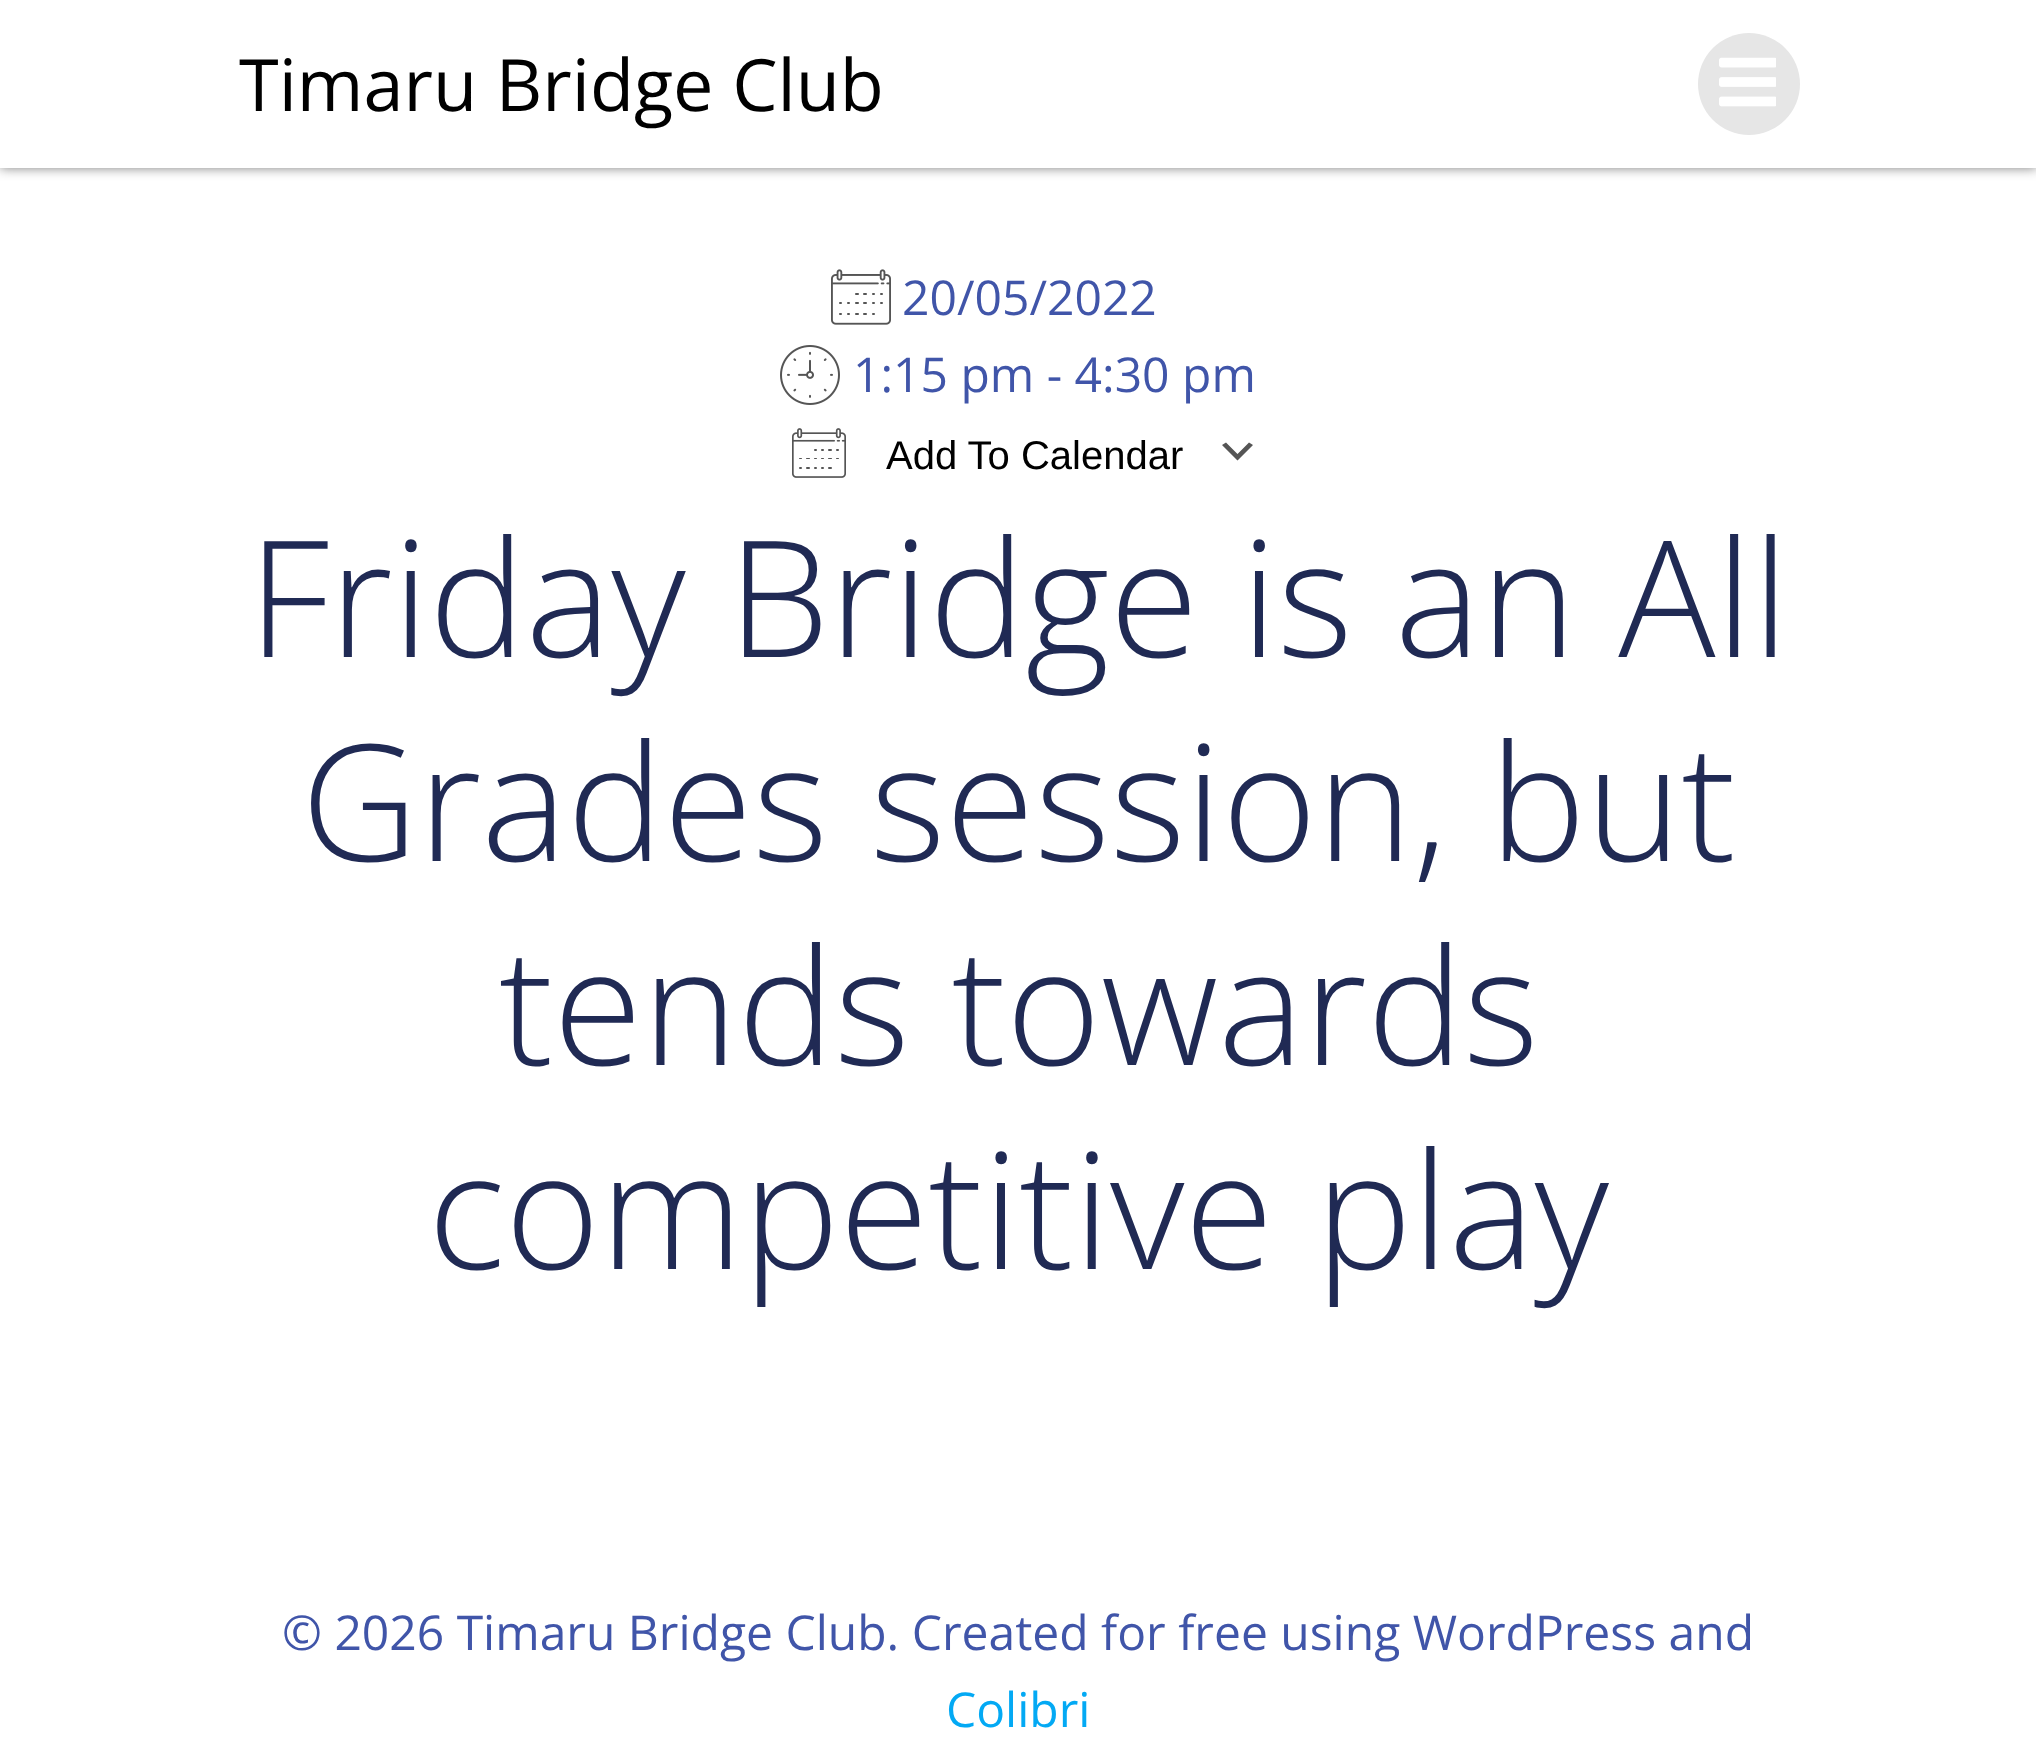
<?xml version="1.0" encoding="UTF-8"?>
<svg xmlns="http://www.w3.org/2000/svg" xmlns:xlink="http://www.w3.org/1999/xlink" width="2036" height="1752">
  <rect width="100%" height="100%" fill="#ffffff" />
  <rect width="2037" height="168" fill="#000000" fill-opacity="0.5" filter="blur(6px)" />
  <rect width="2036" height="168" fill="#ffffff" />
  <circle cx="1749" cy="84" r="51" fill="#e6e6e6" />
  <image x="1719" y="57" width="57" height="50" xlink:href="image1.png" />
  <image x="831" y="269" width="60" height="56" xlink:href="image2.png" />
  <image x="780" y="345" width="60" height="60" xlink:href="image3.png" />
  <path d="M 1226 442.5 l 11.5 11.5 l 11.5 -11.5 l 4 2.5 l -15.5 15.5 l -15.5 -15.5 z" fill="#555555" />
  <image x="792" y="428" width="54" height="50" xlink:href="image4.png" />
  <text x="239" y="111" style="font-family: Open Sans; font-size: 72px; fill: #000000">Timaru Bridge Club</text>
  <text x="902" y="315" style="font-family: Open Sans; font-size: 48px; fill: #4055a9">20/05/2022</text>
  <text x="853" y="392" style="font-family: Open Sans; font-size: 48px; fill: #4055a9">1:15 pm - 4:30 pm</text>
  <text x="886" y="469" style="font-family: Liberation Sans; font-size: 40px; fill: #000000">Add To Calendar</text>
  <text x="248" y="657" style="font-family: Open Sans; font-size: 162px; font-weight: 300; fill: #202a54">Friday Bridge is an All</text>
  <text x="301" y="861" style="font-family: Open Sans; font-size: 162px; font-weight: 300; fill: #202a54">Grades session, but</text>
  <text x="499" y="1065" style="font-family: Open Sans; font-size: 162px; font-weight: 300; fill: #202a54">tends towards</text>
  <text x="428" y="1269" style="font-family: Open Sans; font-size: 162px; font-weight: 300; fill: #202a54">competitive play</text>
  <text x="282" y="1650" style="font-family: Open Sans; font-size: 48px; fill: #4055a9">© 2026 Timaru Bridge Club. Created for free using WordPress and</text>
  <text x="946" y="1727" style="font-family: Open Sans; font-size: 48px; fill: #03a9f4">Colibri</text>
</svg>
